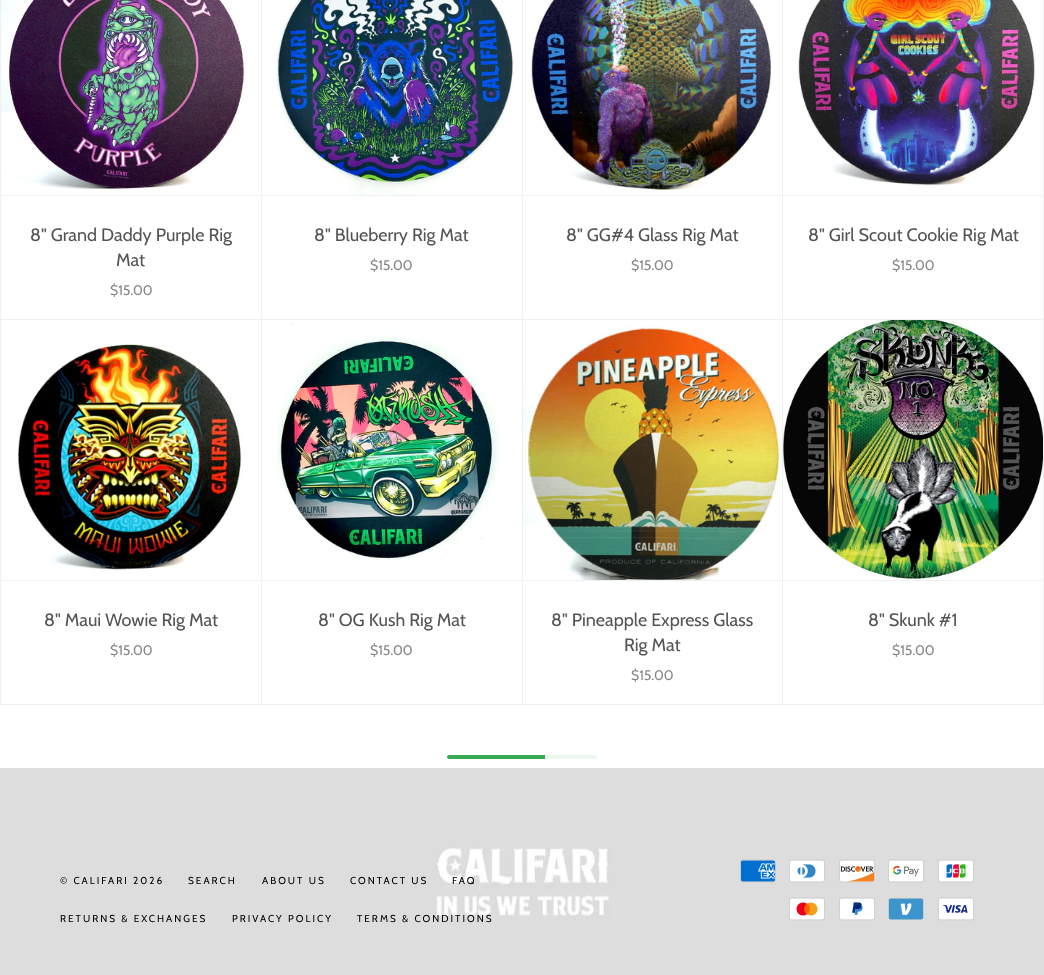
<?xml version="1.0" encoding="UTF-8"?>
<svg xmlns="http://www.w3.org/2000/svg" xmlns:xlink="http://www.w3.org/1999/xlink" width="1044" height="975">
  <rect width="100%" height="100%" fill="#ffffff" />
  <rect width="1" height="705" fill="#f0f0f0" />
  <rect x="261" width="1" height="320" fill="#f0f0f0" />
  <rect x="1" y="195" width="260" height="1" fill="#f0f0f0" />
  <image x="1" y="0" width="243" height="189" xlink:href="image1.png" />
  <rect x="522" width="1" height="320" fill="#f0f0f0" />
  <rect x="262" y="195" width="260" height="1" fill="#f0f0f0" />
  <image x="276" y="0" width="238" height="195" xlink:href="image2.png" />
  <rect x="782" width="1" height="320" fill="#f0f0f0" />
  <rect x="523" y="195" width="259" height="1" fill="#f0f0f0" />
  <image x="530" y="0" width="242" height="194" xlink:href="image3.png" />
  <rect x="1043" width="1" height="320" fill="#f0f0f0" />
  <rect x="783" y="195" width="260" height="1" fill="#f0f0f0" />
  <image x="798" y="0" width="238" height="186" xlink:href="image4.png" />
  <rect x="1" y="319" width="1043" height="1" fill="#f0f0f0" />
  <rect x="261" y="319" width="1" height="386" fill="#f0f0f0" />
  <rect x="1" y="704" width="261" height="1" fill="#f0f0f0" />
  <rect x="1" y="580" width="260" height="1" fill="#f0f0f0" />
  <image x="17" y="343" width="225" height="227" xlink:href="image5.png" />
  <rect x="522" y="319" width="1" height="386" fill="#f0f0f0" />
  <rect x="262" y="704" width="261" height="1" fill="#f0f0f0" />
  <rect x="262" y="580" width="260" height="1" fill="#f0f0f0" />
  <image x="276" y="323" width="233" height="257" xlink:href="image6.png" />
  <rect x="782" y="319" width="1" height="386" fill="#f0f0f0" />
  <rect x="523" y="704" width="260" height="1" fill="#f0f0f0" />
  <rect x="523" y="580" width="259" height="1" fill="#f0f0f0" />
  <image x="523" y="326" width="258" height="254" xlink:href="image7.png" />
  <rect x="1043" y="319" width="1" height="386" fill="#f0f0f0" />
  <rect x="783" y="704" width="261" height="1" fill="#f0f0f0" />
  <rect x="783" y="580" width="260" height="1" fill="#f0f0f0" />
  <image x="783" y="320" width="260" height="260" xlink:href="image8.png" />
  <rect x="447" y="755" width="150" height="4" rx="2" fill="#ebf7ee" />
  <path d="M 449 755 h 96 v 4 h -96 c -1 0 -2 -1 -2 -2 c 0 -1 1 -2 2 -2 z" fill="#37ab51" />
  <image x="0" y="768" width="1044" height="207" xlink:href="image9.png" />
  <image x="740" y="859" width="36" height="24" xlink:href="image10.png" />
  <image x="789" y="859" width="36" height="24" xlink:href="image11.png" />
  <image x="839" y="859" width="36" height="24" xlink:href="image12.png" />
  <image x="888" y="859" width="36" height="24" xlink:href="image13.png" />
  <image x="938" y="859" width="36" height="24" xlink:href="image14.png" />
  <image x="789" y="897" width="36" height="24" xlink:href="image15.png" />
  <image x="839" y="897" width="36" height="24" xlink:href="image16.png" />
  <image x="888" y="898" width="36" height="22" xlink:href="image17.png" />
  <image x="938" y="897" width="36" height="24" xlink:href="image18.png" />
  <text x="30" y="241" style="font-family: Cabin; font-size: 18px; fill: #545454">8" Grand Daddy Purple Rig</text>
  <text x="116" y="266" style="font-family: Cabin; font-size: 18px; fill: #545454">Mat</text>
  <text x="110" y="295" style="font-family: Cabin; font-size: 14px; fill: #878787">$15.00</text>
  <text x="314" y="241" style="font-family: Cabin; font-size: 18px; fill: #545454">8" Blueberry Rig Mat</text>
  <text x="370" y="270" style="font-family: Cabin; font-size: 14px; fill: #878787">$15.00</text>
  <text x="566" y="241" style="font-family: Cabin; font-size: 18px; fill: #545454">8" GG#4 Glass Rig Mat</text>
  <text x="631" y="270" style="font-family: Cabin; font-size: 14px; fill: #878787">$15.00</text>
  <text x="808" y="241" style="font-family: Cabin; font-size: 18px; fill: #545454">8" Girl Scout Cookie Rig Mat</text>
  <text x="892" y="270" style="font-family: Cabin; font-size: 14px; fill: #878787">$15.00</text>
  <text x="44" y="626" style="font-family: Cabin; font-size: 18px; fill: #545454">8" Maui Wowie Rig Mat</text>
  <text x="110" y="655" style="font-family: Cabin; font-size: 14px; fill: #878787">$15.00</text>
  <text x="318" y="626" style="font-family: Cabin; font-size: 18px; fill: #545454">8" OG Kush Rig Mat</text>
  <text x="370" y="655" style="font-family: Cabin; font-size: 14px; fill: #878787">$15.00</text>
  <text x="551" y="626" style="font-family: Cabin; font-size: 18px; fill: #545454">8" Pineapple Express Glass</text>
  <text x="624" y="651" style="font-family: Cabin; font-size: 18px; fill: #545454">Rig Mat</text>
  <text x="631" y="680" style="font-family: Cabin; font-size: 14px; fill: #878787">$15.00</text>
  <text x="868" y="626" style="font-family: Cabin; font-size: 18px; fill: #545454">8" Skunk #1</text>
  <text x="892" y="655" style="font-family: Cabin; font-size: 14px; fill: #878787">$15.00</text>
  <text x="60" y="884" style="font-family: Cabin; font-size: 10px; letter-spacing: 2px; fill: #000000">© CALIFARI 2026</text>
  <text x="188" y="884" style="font-family: Cabin; font-size: 10px; letter-spacing: 2px; fill: #000000">SEARCH</text>
  <text x="262" y="884" style="font-family: Cabin; font-size: 10px; letter-spacing: 2px; fill: #000000">ABOUT US</text>
  <text x="350" y="884" style="font-family: Cabin; font-size: 10px; letter-spacing: 2px; fill: #000000">CONTACT US</text>
  <text x="452" y="884" style="font-family: Cabin; font-size: 10px; letter-spacing: 2px; fill: #000000">FAQ</text>
  <text x="60" y="922" style="font-family: Cabin; font-size: 10px; letter-spacing: 2px; fill: #000000">RETURNS &amp; EXCHANGES</text>
  <text x="232" y="922" style="font-family: Cabin; font-size: 10px; letter-spacing: 2px; fill: #000000">PRIVACY POLICY</text>
  <text x="357" y="922" style="font-family: Cabin; font-size: 10px; letter-spacing: 2px; fill: #000000">TERMS &amp; CONDITIONS</text>
</svg>
